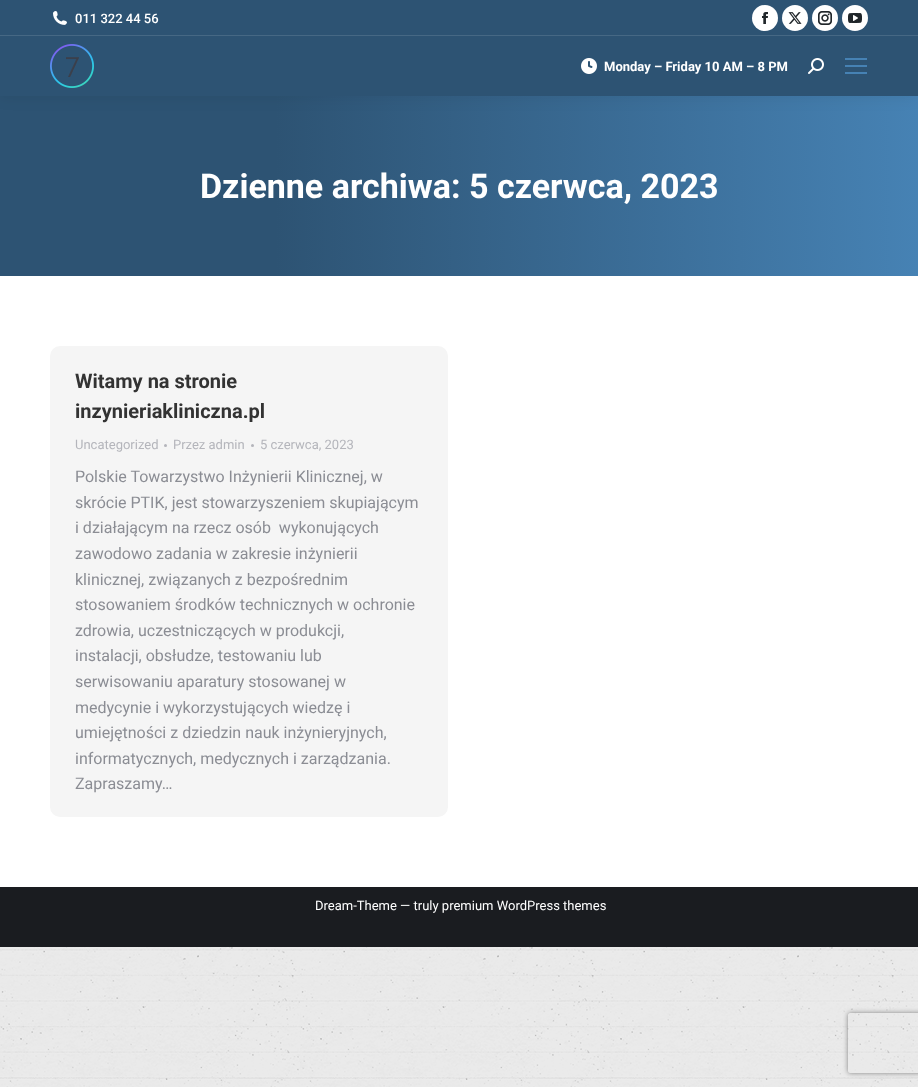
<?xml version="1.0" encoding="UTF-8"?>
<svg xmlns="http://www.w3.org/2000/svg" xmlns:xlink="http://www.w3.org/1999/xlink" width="918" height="1087">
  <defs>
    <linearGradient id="g1" gradientUnits="userSpaceOnUse" x1="0" y1="186" x2="918" y2="186"><stop offset="0.3" stop-color="#2d5373" /><stop offset="1" stop-color="#4682b4" /></linearGradient>
    <clipPath id="clip1"><path d="M 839 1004 h 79 v 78 h -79 z m 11 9 h 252 c 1 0 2 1 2 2 v 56 c 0 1 -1 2 -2 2 h -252 c -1 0 -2 -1 -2 -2 v -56 c 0 -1 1 -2 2 -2 z" clip-rule="evenodd" /></clipPath>
  </defs>
  <rect width="100%" height="100%" fill="#ffffff" />
  <image x="0" y="947" width="918" height="140" xlink:href="image1.png" />
  <rect y="96" width="918" height="180" fill="url(#g1)" />
  <rect x="-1" y="-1" width="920" height="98" fill="#000000" fill-opacity="0.07" filter="blur(7.5px)" />
  <rect width="918" height="96" fill="#2d5373" />
  <image x="53" y="11" width="14" height="14" xlink:href="image2.png" />
  <circle cx="765" cy="18" r="13" fill="#ffffff" />
  <image x="762" y="12" width="6" height="12" xlink:href="image3.png" />
  <circle cx="795" cy="18" r="13" fill="#ffffff" />
  <image x="788" y="12" width="14" height="12" xlink:href="image4.png" />
  <circle cx="825" cy="18" r="13" fill="#ffffff" />
  <image x="818" y="11" width="14" height="14" xlink:href="image5.png" />
  <circle cx="855" cy="18" r="13" fill="#ffffff" />
  <image x="848" y="13" width="14" height="10" xlink:href="image6.png" />
  <rect y="35" width="918" height="1" fill="#466884" />
  <image x="50" y="44" width="44" height="44" xlink:href="image7.png" />
  <image x="581" y="58" width="16" height="16" xlink:href="image8.png" />
  <image x="808" y="58" width="16" height="16" xlink:href="image9.png" />
  <rect x="845" y="58" width="22" height="2" fill="#4682b4" />
  <rect x="845" y="65" width="22" height="2" fill="#4682b4" />
  <rect x="845" y="72" width="22" height="2" fill="#4682b4" />
  <rect x="50" y="346" width="398" height="471" rx="10" fill="#f5f5f5" />
  <circle cx="165.5" cy="445.5" r="1.5" fill="#b4b5bb" />
  <circle cx="252.5" cy="445.5" r="1.5" fill="#b4b5bb" />
  <rect y="887" width="918" height="60" fill="#1a1c20" />
  <g clip-path="url(#clip1)">
    <rect x="848" y="1013" width="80" height="60" rx="2" fill="#808080" filter="blur(2.5px)" />
  </g>
  <text x="75" y="23" style="font-family: Roboto; font-size: 13px; font-weight: 500; fill: #ffffff">011 322 44 56</text>
  <text x="604" y="71" style="font-family: Roboto; font-size: 13px; font-weight: bold; fill: #ffffff">Monday – Friday 10 AM – 8 PM</text>
  <text x="200" y="198" style="font-family: Roboto; font-size: 34px; font-weight: bold; fill: #ffffff">Dzienne archiwa: 5 czerwca, 2023</text>
  <text x="75" y="388" style="font-family: Roboto; font-size: 20px; font-weight: bold; fill: #333333">Witamy na stronie</text>
  <text x="75" y="418" style="font-family: Roboto; font-size: 20px; font-weight: bold; fill: #333333">inzynieriakliniczna.pl</text>
  <text x="75" y="449" style="font-family: Roboto; font-size: 13px; fill: #b4b5bb">Uncategorized</text>
  <text x="173" y="449" style="font-family: Roboto; font-size: 13px; fill: #b4b5bb">Przez admin</text>
  <text x="260" y="449" style="font-family: Roboto; font-size: 13px; fill: #b4b5bb">5 czerwca, 2023</text>
  <text x="75" y="482" style="font-family: Roboto; font-size: 16px; fill: #8b8d94">Polskie Towarzystwo Inżynierii Klinicznej, w</text>
  <text x="75" y="508" style="font-family: Roboto; font-size: 16px; fill: #8b8d94">skrócie PTIK, jest stowarzyszeniem skupiającym</text>
  <text x="75" y="533" style="font-family: Roboto; font-size: 16px; fill: #8b8d94" xml:space="preserve">i działającym na rzecz osób  wykonujących</text>
  <text x="75" y="559" style="font-family: Roboto; font-size: 16px; fill: #8b8d94">zawodowo zadania w zakresie inżynierii</text>
  <text x="75" y="585" style="font-family: Roboto; font-size: 16px; fill: #8b8d94">klinicznej, związanych z bezpośrednim</text>
  <text x="75" y="610" style="font-family: Roboto; font-size: 16px; fill: #8b8d94">stosowaniem środków technicznych w ochronie</text>
  <text x="75" y="636" style="font-family: Roboto; font-size: 16px; fill: #8b8d94">zdrowia, uczestniczących w produkcji,</text>
  <text x="75" y="661" style="font-family: Roboto; font-size: 16px; fill: #8b8d94">instalacji, obsłudze, testowaniu lub</text>
  <text x="75" y="687" style="font-family: Roboto; font-size: 16px; fill: #8b8d94">serwisowaniu aparatury stosowanej w</text>
  <text x="75" y="713" style="font-family: Roboto; font-size: 16px; fill: #8b8d94">medycynie i wykorzystujących wiedzę i</text>
  <text x="75" y="738" style="font-family: Roboto; font-size: 16px; fill: #8b8d94">umiejętności z dziedzin nauk inżynieryjnych,</text>
  <text x="75" y="764" style="font-family: Roboto; font-size: 16px; fill: #8b8d94">informatycznych, medycznych i zarządzania.</text>
  <text x="75" y="789" style="font-family: Roboto; font-size: 16px; fill: #8b8d94">Zapraszamy…</text>
  <text x="315" y="910" style="font-family: Roboto; font-size: 13px; fill: #ffffff">Dream-Theme — truly premium WordPress themes</text>
</svg>
